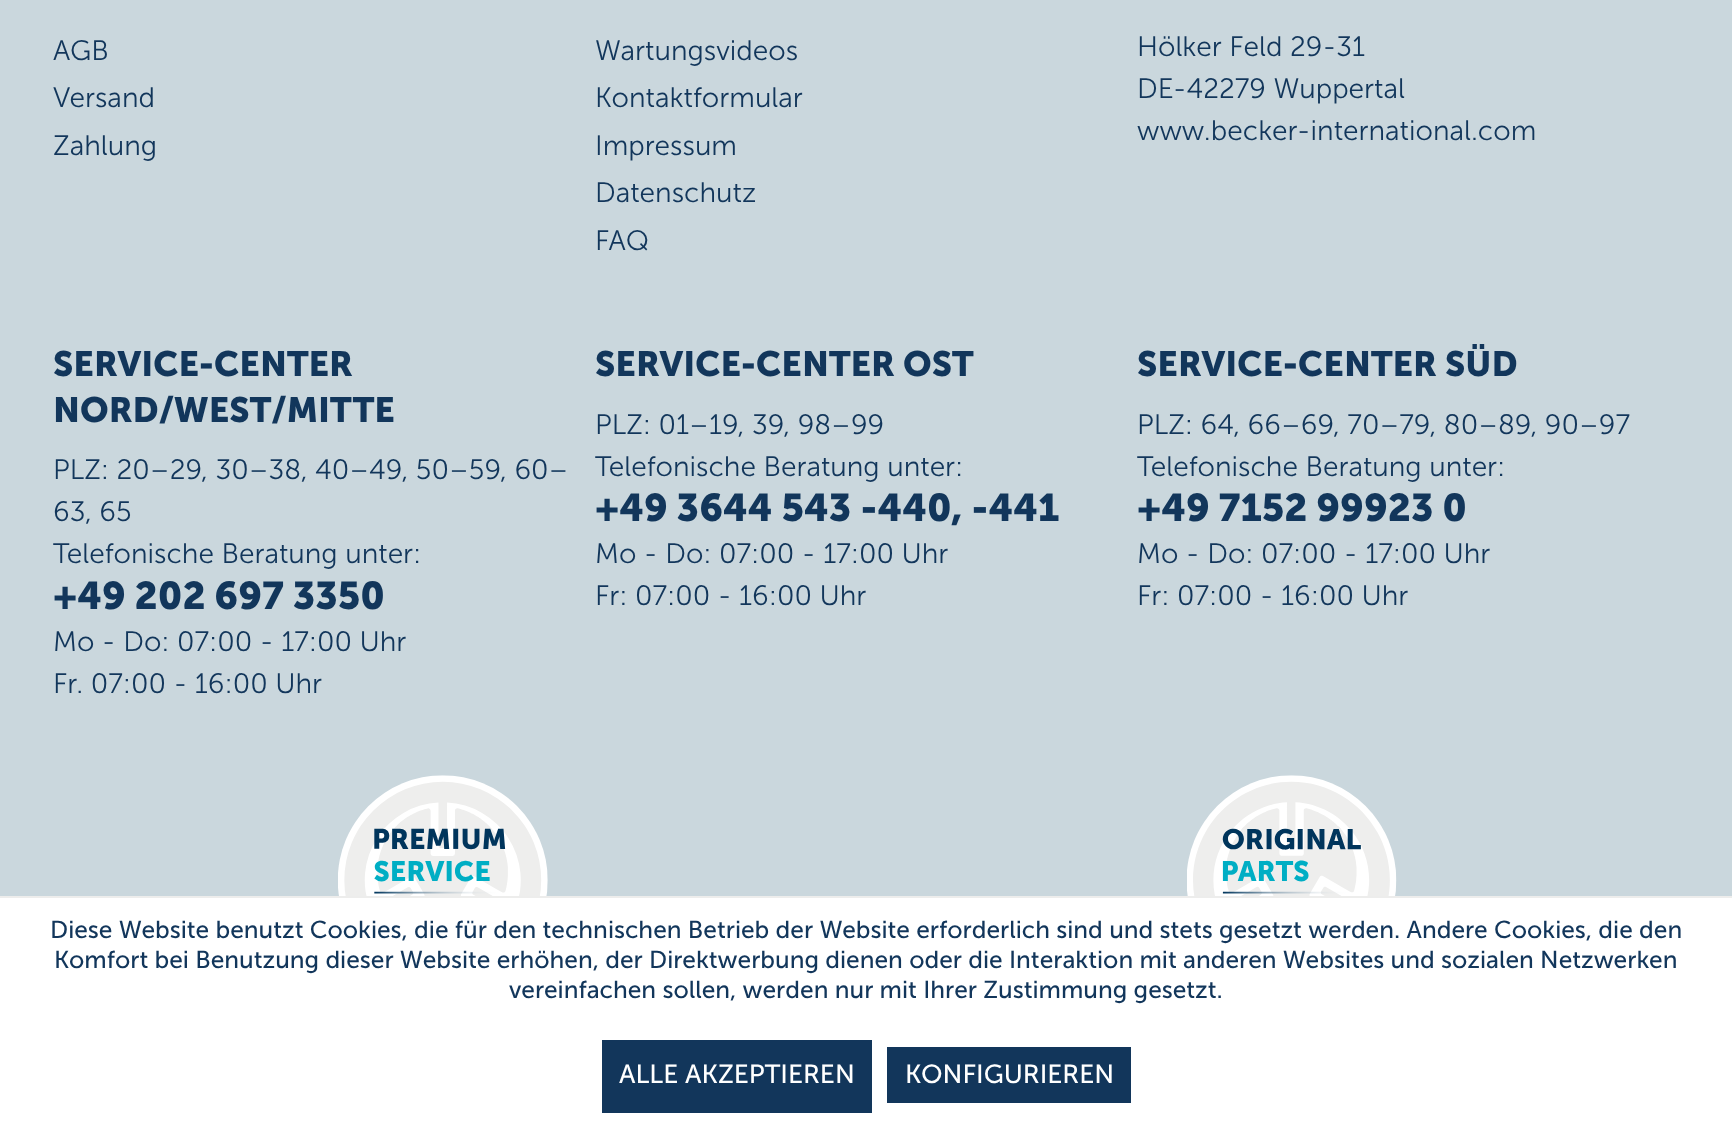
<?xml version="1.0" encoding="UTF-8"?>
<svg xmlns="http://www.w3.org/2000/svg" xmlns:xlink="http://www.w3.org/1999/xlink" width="1732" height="1129">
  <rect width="100%" height="100%" fill="#cad7dd" />
  <image x="338" y="775" width="210" height="121" xlink:href="image1.png" />
  <image x="1187" y="775" width="210" height="121" xlink:href="image2.png" />
  <rect y="898" width="1732" height="231" fill="#ffffff" />
  <rect y="896" width="1732" height="2" fill="#ededec" />
  <rect x="602" y="1040" width="270" height="73" fill="#12365b" />
  <rect x="887" y="1047" width="244" height="56" fill="#12365b" />
  <text x="53" y="60" style="font-family: 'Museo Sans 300'; font-size: 28px; font-weight: 300; fill: #12365b">AGB</text>
  <text x="53" y="107" style="font-family: 'Museo Sans 300'; font-size: 28px; font-weight: 300; fill: #12365b">Versand</text>
  <text x="53" y="155" style="font-family: 'Museo Sans 300'; font-size: 28px; font-weight: 300; fill: #12365b">Zahlung</text>
  <text x="595" y="60" style="font-family: 'Museo Sans 300'; font-size: 28px; font-weight: 300; fill: #12365b">Wartungsvideos</text>
  <text x="595" y="107" style="font-family: 'Museo Sans 300'; font-size: 28px; font-weight: 300; fill: #12365b">Kontaktformular</text>
  <text x="595" y="155" style="font-family: 'Museo Sans 300'; font-size: 28px; font-weight: 300; fill: #12365b">Impressum</text>
  <text x="595" y="202" style="font-family: 'Museo Sans 300'; font-size: 28px; font-weight: 300; fill: #12365b">Datenschutz</text>
  <text x="595" y="250" style="font-family: 'Museo Sans 300'; font-size: 28px; font-weight: 300; fill: #12365b">FAQ</text>
  <text x="1137" y="56" style="font-family: 'Museo Sans 300'; font-size: 28px; font-weight: 300; fill: #12365b">Hölker Feld 29-31</text>
  <text x="1137" y="98" style="font-family: 'Museo Sans 300'; font-size: 28px; font-weight: 300; fill: #12365b">DE-42279 Wuppertal</text>
  <text x="1137" y="140" style="font-family: 'Museo Sans 300'; font-size: 28px; font-weight: 300; fill: #12365b">www.becker-international.com</text>
  <text x="53" y="376" style="font-family: 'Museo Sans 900'; font-size: 35px; font-weight: bold; fill: #12365b">SERVICE-CENTER</text>
  <text x="53" y="422" style="font-family: 'Museo Sans 900'; font-size: 35px; font-weight: bold; fill: #12365b">NORD/WEST/MITTE</text>
  <text x="53" y="479" style="font-family: 'Museo Sans 300'; font-size: 28px; font-weight: 300; fill: #12365b">PLZ: 20–29, 30–38, 40–49, 50–59, 60–</text>
  <text x="53" y="521" style="font-family: 'Museo Sans 300'; font-size: 28px; font-weight: 300; fill: #12365b">63, 65</text>
  <text x="53" y="563" style="font-family: 'Museo Sans 300'; font-size: 28px; font-weight: 300; fill: #12365b">Telefonische Beratung unter:</text>
  <text x="53" y="609" style="font-family: 'Museo Sans 900'; font-size: 38.5px; font-weight: bold; fill: #12365b">+49 202 697 3350</text>
  <text x="53" y="651" style="font-family: 'Museo Sans 300'; font-size: 28px; font-weight: 300; fill: #12365b">Mo - Do: 07:00 - 17:00 Uhr</text>
  <text x="53" y="693" style="font-family: 'Museo Sans 300'; font-size: 28px; font-weight: 300; fill: #12365b">Fr. 07:00 - 16:00 Uhr</text>
  <text x="595" y="376" style="font-family: 'Museo Sans 900'; font-size: 35px; font-weight: bold; fill: #12365b">SERVICE-CENTER OST</text>
  <text x="595" y="434" style="font-family: 'Museo Sans 300'; font-size: 28px; font-weight: 300; fill: #12365b">PLZ: 01–19, 39, 98–99</text>
  <text x="595" y="476" style="font-family: 'Museo Sans 300'; font-size: 28px; font-weight: 300; fill: #12365b">Telefonische Beratung unter:</text>
  <text x="595" y="521" style="font-family: 'Museo Sans 900'; font-size: 38.5px; font-weight: bold; fill: #12365b">+49 3644 543 -440, -441</text>
  <text x="595" y="563" style="font-family: 'Museo Sans 300'; font-size: 28px; font-weight: 300; fill: #12365b">Mo - Do: 07:00 - 17:00 Uhr</text>
  <text x="595" y="605" style="font-family: 'Museo Sans 300'; font-size: 28px; font-weight: 300; fill: #12365b">Fr: 07:00 - 16:00 Uhr</text>
  <text x="1137" y="376" style="font-family: 'Museo Sans 900'; font-size: 35px; font-weight: bold; fill: #12365b">SERVICE-CENTER SÜD</text>
  <text x="1137" y="434" style="font-family: 'Museo Sans 300'; font-size: 28px; font-weight: 300; fill: #12365b">PLZ: 64, 66–69, 70–79, 80–89, 90–97</text>
  <text x="1137" y="476" style="font-family: 'Museo Sans 300'; font-size: 28px; font-weight: 300; fill: #12365b">Telefonische Beratung unter:</text>
  <text x="1137" y="521" style="font-family: 'Museo Sans 900'; font-size: 38.5px; font-weight: bold; fill: #12365b">+49 7152 99923 0</text>
  <text x="1137" y="563" style="font-family: 'Museo Sans 300'; font-size: 28px; font-weight: 300; fill: #12365b">Mo - Do: 07:00 - 17:00 Uhr</text>
  <text x="1137" y="605" style="font-family: 'Museo Sans 300'; font-size: 28px; font-weight: 300; fill: #12365b">Fr: 07:00 - 16:00 Uhr</text>
  <text x="50" y="938" style="font-family: 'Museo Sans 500'; font-size: 24.5px; fill: #12365b">Diese Website benutzt Cookies, die für den technischen Betrieb der Website erforderlich sind und stets gesetzt werden. Andere Cookies, die den</text>
  <text x="54" y="968" style="font-family: 'Museo Sans 500'; font-size: 24.5px; fill: #12365b">Komfort bei Benutzung dieser Website erhöhen, der Direktwerbung dienen oder die Interaktion mit anderen Websites und sozialen Netzwerken</text>
  <text x="509" y="998" style="font-family: 'Museo Sans 500'; font-size: 24.5px; fill: #12365b">vereinfachen sollen, werden nur mit Ihrer Zustimmung gesetzt.</text>
  <text x="619" y="1083" style="font-family: 'Museo Sans 500'; font-size: 26.25px; fill: #ffffff">ALLE AKZEPTIEREN</text>
  <text x="905" y="1083" style="font-family: 'Museo Sans 500'; font-size: 26.25px; fill: #ffffff">KONFIGURIEREN</text>
</svg>
